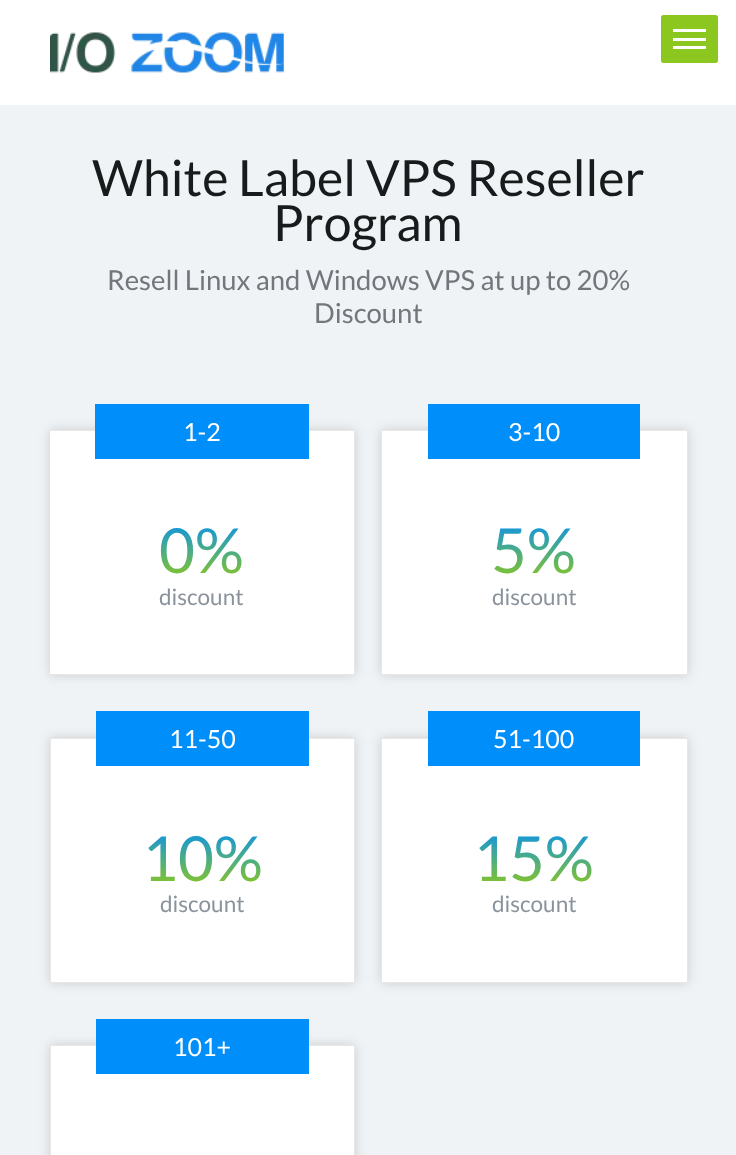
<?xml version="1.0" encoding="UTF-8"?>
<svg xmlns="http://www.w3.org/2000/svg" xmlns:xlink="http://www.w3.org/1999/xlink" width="736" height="1155">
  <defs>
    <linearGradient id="g1" gradientUnits="userSpaceOnUse" x1="202" y1="518" x2="202" y2="581"><stop offset="0" stop-color="#0590f4" /><stop offset="1" stop-color="#8bc621" /></linearGradient>
    <linearGradient id="g2" gradientUnits="userSpaceOnUse" x1="534" y1="518" x2="534" y2="581"><stop offset="0" stop-color="#0590f4" /><stop offset="1" stop-color="#8bc621" /></linearGradient>
    <linearGradient id="g3" gradientUnits="userSpaceOnUse" x1="202" y1="826" x2="202" y2="888"><stop offset="0" stop-color="#0590f4" /><stop offset="1" stop-color="#8bc621" /></linearGradient>
    <linearGradient id="g4" gradientUnits="userSpaceOnUse" x1="534" y1="826" x2="534" y2="888"><stop offset="0" stop-color="#0590f4" /><stop offset="1" stop-color="#8bc621" /></linearGradient>
  </defs>
  <rect width="100%" height="100%" fill="#ffffff" />
  <image x="50" y="32" width="234" height="41" xlink:href="image1.png" />
  <rect x="661" y="15" width="57" height="48" rx="2.5" fill="#8cc71f" />
  <rect x="673" y="29" width="33" height="3" fill="#ffffff" />
  <rect x="673" y="38" width="33" height="3" fill="#ffffff" />
  <rect x="673" y="46" width="33" height="3" fill="#ffffff" />
  <rect y="105" width="736" height="1050" fill="#f0f3f5" />
  <rect x="50" y="430" width="305" height="245" fill="#000000" fill-opacity="0.15" filter="blur(6px)" />
  <rect x="50" y="431" width="304" height="243" fill="#ffffff" />
  <rect x="50" y="430" width="305" height="1" fill="#e7e7e7" />
  <rect x="354" y="430" width="1" height="245" fill="#e7e7e7" />
  <rect x="50" y="674" width="305" height="1" fill="#e7e7e7" />
  <rect x="95" y="404" width="214" height="55" fill="#008efb" />
  <rect x="381" y="430" width="307" height="245" fill="#000000" fill-opacity="0.15" filter="blur(6px)" />
  <rect x="381.5" y="430.5" width="306" height="244" fill="#ffffff" stroke="#e7e7e7" />
  <rect x="428" y="404" width="212" height="55" fill="#008efb" />
  <rect x="50" y="738" width="305" height="245" fill="#000000" fill-opacity="0.15" filter="blur(6px)" />
  <rect x="50.5" y="738.5" width="304" height="244" fill="#ffffff" stroke="#e7e7e7" />
  <rect x="96" y="711" width="213" height="55" fill="#008efb" />
  <rect x="381" y="738" width="307" height="245" fill="#000000" fill-opacity="0.15" filter="blur(6px)" />
  <rect x="381.5" y="738.5" width="306" height="244" fill="#ffffff" stroke="#e7e7e7" />
  <rect x="428" y="711" width="212" height="55" fill="#008efb" />
  <rect x="50" y="1045" width="305" height="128" fill="#000000" fill-opacity="0.15" filter="blur(6px)" />
  <rect x="50.5" y="1045.5" width="304" height="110" fill="#ffffff" stroke="#e7e7e7" />
  <rect x="96" y="1019" width="213" height="55" fill="#008efb" />
  <text x="92" y="196" style="font-family: Lato; font-size: 50px; fill: #171b1b">White Label VPS Reseller</text>
  <text x="273" y="241" style="font-family: Lato; font-size: 50px; fill: #171b1b">Program</text>
  <text x="107" y="290" style="font-family: Lato; font-size: 27.5px; fill: #71777c">Resell Linux and Windows VPS at up to 20%</text>
  <text x="314" y="323" style="font-family: Lato; font-size: 27.5px; fill: #71777c">Discount</text>
  <text x="183" y="441" style="font-family: Lato; font-size: 25px; fill: #ffffff">1-2</text>
  <text x="159" y="573" style="font-family: Lato; font-size: 62px; fill: url(#g1)">0%</text>
  <text x="159" y="605" style="font-family: Lato; font-size: 22.5px; fill: #8a939c">discount</text>
  <text x="508" y="441" style="font-family: Lato; font-size: 25px; fill: #ffffff">3-10</text>
  <text x="491" y="573" style="font-family: Lato; font-size: 62px; fill: url(#g2)">5%</text>
  <text x="492" y="605" style="font-family: Lato; font-size: 22.5px; fill: #8a939c">discount</text>
  <text x="169" y="748" style="font-family: Lato; font-size: 25px; fill: #ffffff">11-50</text>
  <text x="142" y="881" style="font-family: Lato; font-size: 62px; fill: url(#g3)">10%</text>
  <text x="160" y="912" style="font-family: Lato; font-size: 22.5px; fill: #8a939c">discount</text>
  <text x="493" y="748" style="font-family: Lato; font-size: 25px; fill: #ffffff">51-100</text>
  <text x="473" y="881" style="font-family: Lato; font-size: 62px; fill: url(#g4)">15%</text>
  <text x="492" y="912" style="font-family: Lato; font-size: 22.5px; fill: #8a939c">discount</text>
  <text x="173" y="1056" style="font-family: Lato; font-size: 25px; fill: #ffffff">101+</text>
</svg>
